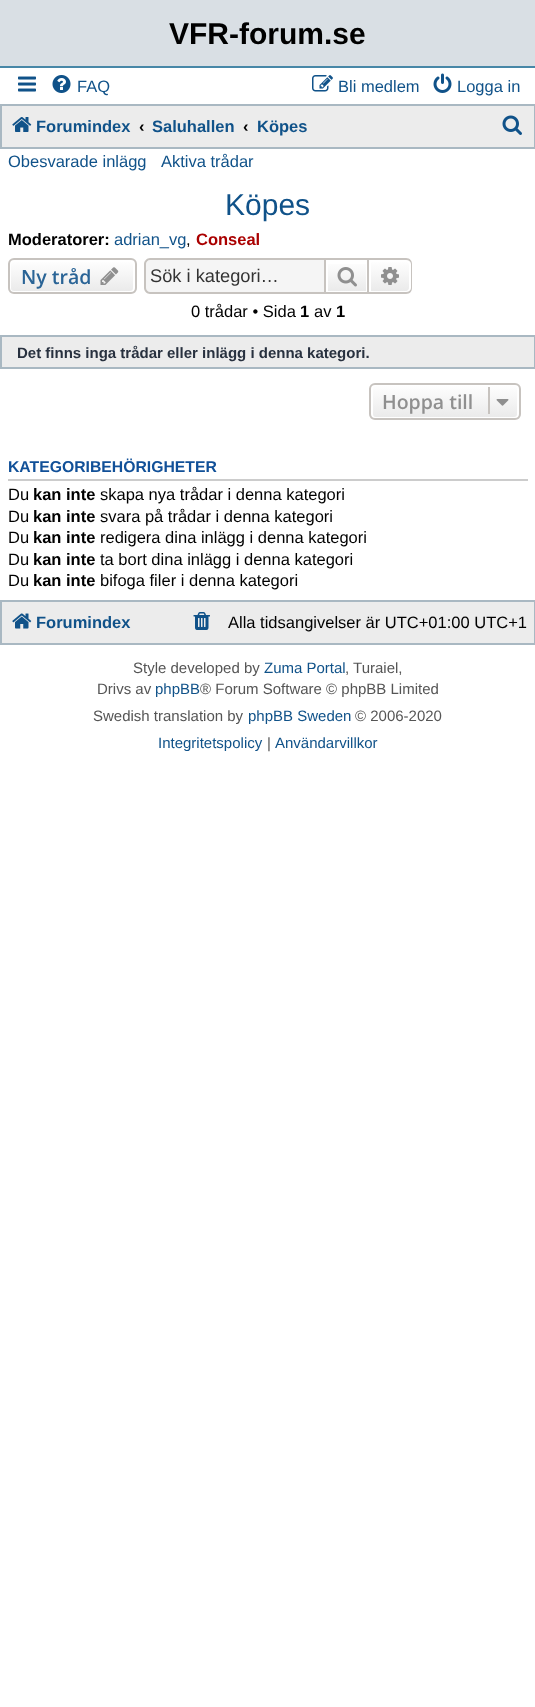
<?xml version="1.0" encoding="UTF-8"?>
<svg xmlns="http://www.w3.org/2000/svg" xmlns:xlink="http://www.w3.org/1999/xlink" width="535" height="1707">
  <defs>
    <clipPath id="clip1"><rect x="8" y="258" width="129" height="36" rx="6" /></clipPath>
    <linearGradient id="g1" gradientUnits="userSpaceOnUse" x1="72" y1="260" x2="72" y2="293"><stop offset="0" stop-color="#ffffff" /><stop offset="1" stop-color="#e9e9e9" /></linearGradient>
    <linearGradient id="g2" gradientUnits="userSpaceOnUse" x1="347" y1="260" x2="347" y2="293"><stop offset="0" stop-color="#ffffff" /><stop offset="1" stop-color="#e9e9e9" /></linearGradient>
    <linearGradient id="g3" gradientUnits="userSpaceOnUse" x1="390" y1="260" x2="390" y2="293"><stop offset="0" stop-color="#ffffff" /><stop offset="1" stop-color="#e9e9e9" /></linearGradient>
    <clipPath id="clip2"><rect x="369" y="383" width="152" height="37" rx="6" /></clipPath>
    <linearGradient id="g4" gradientUnits="userSpaceOnUse" x1="445" y1="384" x2="445" y2="419"><stop offset="0" stop-color="#ffffff" /><stop offset="1" stop-color="#e9e9e9" /></linearGradient>
  </defs>
  <rect width="100%" height="100%" fill="#ffffff" />
  <rect width="535" height="66" fill="#d9dfe4" />
  <rect y="66" width="535" height="2" fill="#4787a7" />
  <image x="18" y="76" width="18" height="16" xlink:href="image1.png" />
  <image x="52" y="75" width="19" height="18" xlink:href="image2.png" />
  <image x="312" y="75" width="21" height="17" xlink:href="image3.png" />
  <image x="433" y="73" width="19" height="20" xlink:href="image4.png" />
  <rect x="1" y="105" width="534" height="43" fill="#ececec" stroke="#a9b8c2" stroke-width="2" />
  <image x="12" y="117" width="20" height="15" xlink:href="image5.png" />
  <image x="502" y="115" width="20" height="20" xlink:href="image6.png" />
  <g clip-path="url(#clip1)">
    <rect x="8" y="260" width="129" height="33" fill="url(#g1)" />
  </g>
  <rect x="10" y="261" width="124" height="31" rx="4" fill="none" stroke="#ffffff" stroke-width="2" />
  <rect x="9" y="259" width="127" height="34" rx="5" fill="none" stroke="#c7c3bf" stroke-width="2" />
  <image x="100" y="267" width="19" height="18" xlink:href="image7.png" />
  <path d="M 151 260 h 173 v 33 h -173 c -3 0 -5 -2 -5 -5 v -23 c 0 -3 2 -5 5 -5 z" fill="#f5f5f5" />
  <path d="M 150 258 h 174 v 36 h -174 c -3 0 -6 -3 -6 -6 v -24 c 0 -3 3 -6 6 -6 z m 0 2 h 174 v 32 h -174 c -2 0 -4 -2 -4 -4 v -24 c 0 -2 2 -4 4 -4 z" fill="#c7c3bf" fill-rule="evenodd" />
  <rect x="328" y="264" width="38" height="27" fill="url(#g2)" />
  <rect x="325" y="259" width="43" height="34" fill="none" stroke="#c7c3bf" stroke-width="2" />
  <image x="337" y="267" width="20" height="20" xlink:href="image8.png" />
  <path d="M 370 261 h 36 c 2 0 4 2 4 4 v 23 c 0 2 -2 4 -4 4 h -36 z" fill="url(#g3)" stroke="#ffffff" stroke-width="2" />
  <path d="M 369 258 h 37 c 4 0 6 3 6 6 v 24 c 0 3 -2 6 -6 6 h -37 z m 0 2 h 37 c 3 0 5 2 5 4 v 24 c 0 2 -2 4 -5 4 h -37 z" fill="#c7c3bf" fill-rule="evenodd" />
  <image x="381" y="267" width="18" height="18" xlink:href="image9.png" />
  <rect x="1" y="336" width="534" height="32" fill="#ececec" stroke="#a9b8c2" stroke-width="2" />
  <g clip-path="url(#clip2)">
    <rect x="369" y="384" width="152" height="35" fill="url(#g4)" />
  </g>
  <rect x="372" y="385" width="146" height="33" rx="4" fill="none" stroke="#ffffff" stroke-width="2" />
  <rect x="370" y="384" width="150" height="35" rx="5" fill="none" stroke="#c7c3bf" stroke-width="2" />
  <rect x="488" y="387" width="2" height="27" fill="#c7c3bf" />
  <image x="496" y="399" width="13" height="7" xlink:href="image10.png" />
  <rect x="8" y="479" width="520" height="2" fill="#cccccc" />
  <rect x="1" y="601" width="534" height="43" fill="#ececec" stroke="#a9b8c2" stroke-width="2" />
  <image x="12" y="613" width="20" height="16" xlink:href="image11.png" />
  <image x="193" y="612" width="17" height="18" xlink:href="image12.png" />
  <text x="169" y="44" style="font-family: Liberation Sans; font-size: 30px; font-weight: bold; fill: #000000">VFR-forum.se</text>
  <text x="77" y="92" style="font-family: Liberation Sans; font-size: 16.5px; fill: #105289">FAQ</text>
  <text x="338" y="92" style="font-family: Liberation Sans; font-size: 16.5px; fill: #105289">Bli medlem</text>
  <text x="457" y="92" style="font-family: Liberation Sans; font-size: 16.5px; fill: #105289">Logga in</text>
  <text x="36" y="132" style="font-family: Liberation Sans; font-size: 16.5px; font-weight: bold; fill: #105289">Forumindex</text>
  <text x="139" y="132" style="font-family: Liberation Sans; font-size: 16.5px; font-weight: bold; fill: #000000">‹</text>
  <text x="152" y="132" style="font-family: Liberation Sans; font-size: 16.5px; font-weight: bold; fill: #105289">Saluhallen</text>
  <text x="243" y="132" style="font-family: Liberation Sans; font-size: 16.5px; font-weight: bold; fill: #000000">‹</text>
  <text x="257" y="132" style="font-family: Liberation Sans; font-size: 16.5px; font-weight: bold; fill: #105289">Köpes</text>
  <text x="8" y="167" style="font-family: Liberation Sans; font-size: 16.5px; fill: #105289">Obesvarade inlägg</text>
  <text x="161" y="167" style="font-family: Liberation Sans; font-size: 16.5px; fill: #105289">Aktiva trådar</text>
  <text x="225" y="215" style="font-family: Liberation Sans; font-size: 30px; fill: #105289">Köpes</text>
  <text x="8" y="245" style="font-family: Liberation Sans; font-size: 16.5px; font-weight: bold; fill: #000000">Moderatorer:</text>
  <text x="114" y="245" style="font-family: Liberation Sans; font-size: 16.5px; fill: #105289">adrian_vg</text>
  <text x="186" y="245" style="font-family: Liberation Sans; font-size: 16.5px; fill: #000000">,</text>
  <text x="196" y="245" style="font-family: Liberation Sans; font-size: 16.5px; font-weight: bold; fill: #aa0000">Conseal</text>
  <text x="21" y="284" style="font-family: Open Sans; font-size: 19.5px; font-weight: 600; fill: #2a6496">Ny tråd</text>
  <text x="150" y="282" style="font-family: Liberation Sans; font-size: 18.25px; fill: #333333">Sök i kategori…</text>
  <text x="191" y="317" style="font-family: Liberation Sans; font-size: 16.5px; fill: #000000">0 trådar • Sida</text>
  <text x="300" y="317" style="font-family: Liberation Sans; font-size: 16.5px; font-weight: bold; fill: #000000">1</text>
  <text x="314" y="317" style="font-family: Liberation Sans; font-size: 16.5px; fill: #000000">av</text>
  <text x="336" y="317" style="font-family: Liberation Sans; font-size: 16.5px; font-weight: bold; fill: #000000">1</text>
  <text x="17" y="358" style="font-family: Liberation Sans; font-size: 15px; font-weight: bold; fill: #28313f">Det finns inga trådar eller inlägg i denna kategori.</text>
  <text x="382" y="409" style="font-family: Open Sans; font-size: 19.5px; font-weight: 600; fill: #8f8f8f">Hoppa till</text>
  <text x="8" y="472" style="font-family: Liberation Sans; font-size: 15.75px; font-weight: bold; fill: #115098">KATEGORIBEHÖRIGHETER</text>
  <text x="8" y="500" style="font-family: Liberation Sans; font-size: 16.5px; fill: #000000">Du</text>
  <text x="33" y="500" style="font-family: Liberation Sans; font-size: 16.5px; font-weight: bold; fill: #000000">kan inte</text>
  <text x="100" y="500" style="font-family: Liberation Sans; font-size: 16.5px; fill: #000000">skapa nya trådar i denna kategori</text>
  <text x="8" y="522" style="font-family: Liberation Sans; font-size: 16.5px; fill: #000000">Du</text>
  <text x="33" y="522" style="font-family: Liberation Sans; font-size: 16.5px; font-weight: bold; fill: #000000">kan inte</text>
  <text x="100" y="522" style="font-family: Liberation Sans; font-size: 16.5px; fill: #000000">svara på trådar i denna kategori</text>
  <text x="8" y="543" style="font-family: Liberation Sans; font-size: 16.5px; fill: #000000">Du</text>
  <text x="33" y="543" style="font-family: Liberation Sans; font-size: 16.5px; font-weight: bold; fill: #000000">kan inte</text>
  <text x="100" y="543" style="font-family: Liberation Sans; font-size: 16.5px; fill: #000000">redigera dina inlägg i denna kategori</text>
  <text x="8" y="565" style="font-family: Liberation Sans; font-size: 16.5px; fill: #000000">Du</text>
  <text x="33" y="565" style="font-family: Liberation Sans; font-size: 16.5px; font-weight: bold; fill: #000000">kan inte</text>
  <text x="100" y="565" style="font-family: Liberation Sans; font-size: 16.5px; fill: #000000">ta bort dina inlägg i denna kategori</text>
  <text x="8" y="586" style="font-family: Liberation Sans; font-size: 16.5px; fill: #000000">Du</text>
  <text x="33" y="586" style="font-family: Liberation Sans; font-size: 16.5px; font-weight: bold; fill: #000000">kan inte</text>
  <text x="100" y="586" style="font-family: Liberation Sans; font-size: 16.5px; fill: #000000">bifoga filer i denna kategori</text>
  <text x="36" y="628" style="font-family: Liberation Sans; font-size: 16.5px; font-weight: bold; fill: #105289">Forumindex</text>
  <text x="228" y="628" style="font-family: Liberation Sans; font-size: 16.5px; fill: #000000">Alla tidsangivelser är UTC+01:00 UTC+1</text>
  <text x="133" y="673" style="font-family: Liberation Sans; font-size: 15px; fill: #555555">Style developed by</text>
  <text x="264" y="673" style="font-family: Liberation Sans; font-size: 15px; fill: #105289">Zuma Portal</text>
  <text x="345" y="673" style="font-family: Liberation Sans; font-size: 15px; fill: #555555">, Turaiel,</text>
  <text x="97" y="694" style="font-family: Liberation Sans; font-size: 15px; fill: #555555">Drivs av</text>
  <text x="155" y="694" style="font-family: Liberation Sans; font-size: 15px; fill: #105289">phpBB</text>
  <text x="200" y="694" style="font-family: Liberation Sans; font-size: 15px; fill: #555555">® Forum Software © phpBB Limited</text>
  <text x="93" y="721" style="font-family: Liberation Sans; font-size: 15px; fill: #555555">Swedish translation by</text>
  <text x="248" y="721" style="font-family: Liberation Sans; font-size: 15px; fill: #105289">phpBB Sweden</text>
  <text x="355" y="721" style="font-family: Liberation Sans; font-size: 15px; fill: #555555">© 2006-2020</text>
  <text x="158" y="748" style="font-family: Liberation Sans; font-size: 15px; fill: #105289">Integritetspolicy</text>
  <text x="267" y="748" style="font-family: Liberation Sans; font-size: 15px; fill: #555555">|</text>
  <text x="275" y="748" style="font-family: Liberation Sans; font-size: 15px; fill: #105289">Användarvillkor</text>
</svg>
